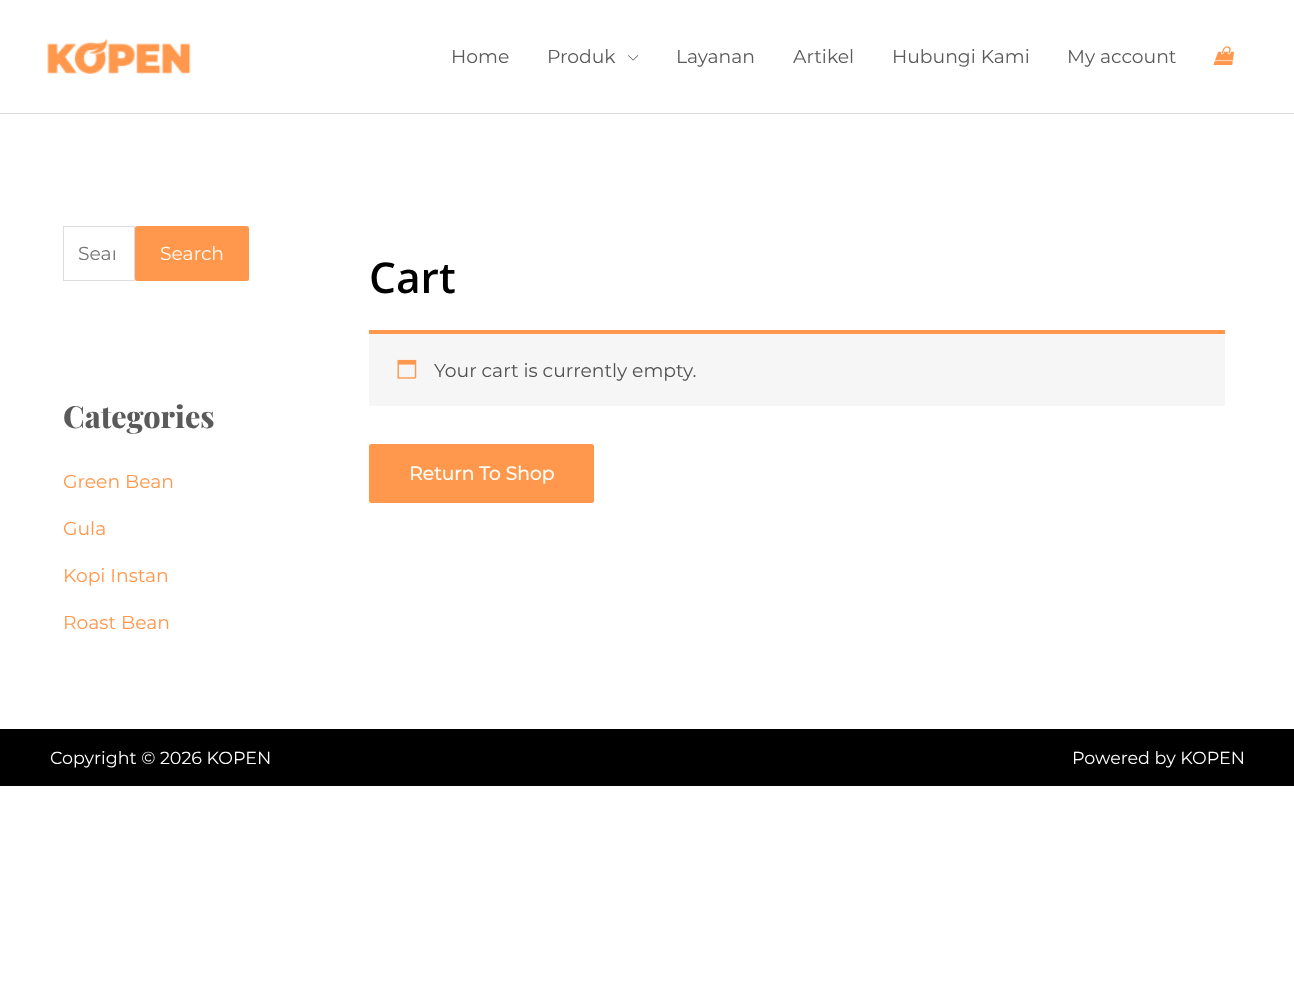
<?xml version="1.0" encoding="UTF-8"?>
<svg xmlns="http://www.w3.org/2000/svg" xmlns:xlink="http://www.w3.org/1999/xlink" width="1294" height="995">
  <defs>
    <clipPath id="clip1"><rect x="78" y="241" width="37" height="24" /></clipPath>
  </defs>
  <rect width="100%" height="100%" fill="#ffffff" />
  <rect y="113" width="1294" height="1" fill="#dddddd" />
  <image x="47" y="38" width="144" height="37" xlink:href="image1.png" />
  <image x="628" y="55" width="11" height="6" xlink:href="image2.png" />
  <image x="1213" y="46" width="21" height="20" xlink:href="image3.png" />
  <rect x="63.5" y="226.5" width="71" height="54" fill="none" stroke="#dddddd" />
  <rect x="135" y="226" width="114" height="55" rx="2.5" fill="#ff974c" />
  <rect x="369" y="334" width="856" height="72" fill="#f7f6f7" />
  <rect x="369" y="330" width="856" height="4" fill="#ff974c" />
  <image x="397" y="359" width="20" height="20" xlink:href="image4.png" />
  <rect x="369" y="444" width="225" height="59" rx="2.5" fill="#ff974c" />
  <rect y="729" width="1294" height="57" fill="#000000" />
  <text x="451" y="63" style="font-family: Montserrat; font-size: 18.75px; font-weight: 100; fill: #5a5a5a">Home</text>
  <text x="547" y="63" style="font-family: Montserrat; font-size: 18.75px; font-weight: 100; fill: #5a5a5a">Produk</text>
  <text x="676" y="63" style="font-family: Montserrat; font-size: 18.75px; font-weight: 100; fill: #5a5a5a">Layanan</text>
  <text x="793" y="63" style="font-family: Montserrat; font-size: 18.75px; font-weight: 100; fill: #5a5a5a">Artikel</text>
  <text x="892" y="63" style="font-family: Montserrat; font-size: 18.75px; font-weight: 100; fill: #5a5a5a">Hubungi Kami</text>
  <text x="1067" y="63" style="font-family: Montserrat; font-size: 18.75px; font-weight: 100; fill: #5a5a5a">My account</text>
  <g clip-path="url(#clip1)">
    <text x="78" y="260" style="font-family: Montserrat; font-size: 18.75px; font-weight: 100; fill: #757575">Sear</text>
  </g>
  <text x="160" y="260" style="font-family: Montserrat; font-size: 18.75px; font-weight: 100; fill: #fcfaf1">Search</text>
  <text x="63" y="428" style="font-family: Playfair Display; font-size: 30.5px; font-weight: 800; fill: #5a5a5a">Categories</text>
  <text x="63" y="488" style="font-family: Montserrat; font-size: 18.75px; font-weight: 100; fill: #ff974c">Green Bean</text>
  <text x="63" y="535" style="font-family: Montserrat; font-size: 18.75px; font-weight: 100; fill: #ff974c">Gula</text>
  <text x="63" y="582" style="font-family: Montserrat; font-size: 18.75px; font-weight: 100; fill: #ff974c">Kopi Instan</text>
  <text x="63" y="629" style="font-family: Montserrat; font-size: 18.75px; font-weight: 100; fill: #ff974c">Roast Bean</text>
  <text x="369" y="293" style="font-family: Open Sans; font-size: 42.5px; font-weight: 600; fill: #000000">Cart</text>
  <text x="434" y="377" style="font-family: Montserrat; font-size: 18.75px; font-weight: 100; fill: #515151">Your cart is currently empty.</text>
  <text x="409" y="480" style="font-family: Montserrat; font-size: 18.75px; font-weight: bold; fill: #fcfaf1">Return To Shop</text>
  <text x="50" y="764" style="font-family: Montserrat; font-size: 17.5px; font-weight: 100; fill: #ffffff">Copyright © 2026 KOPEN</text>
  <text x="1072" y="764" style="font-family: Montserrat; font-size: 17.5px; font-weight: 100; fill: #ffffff">Powered by KOPEN</text>
</svg>
